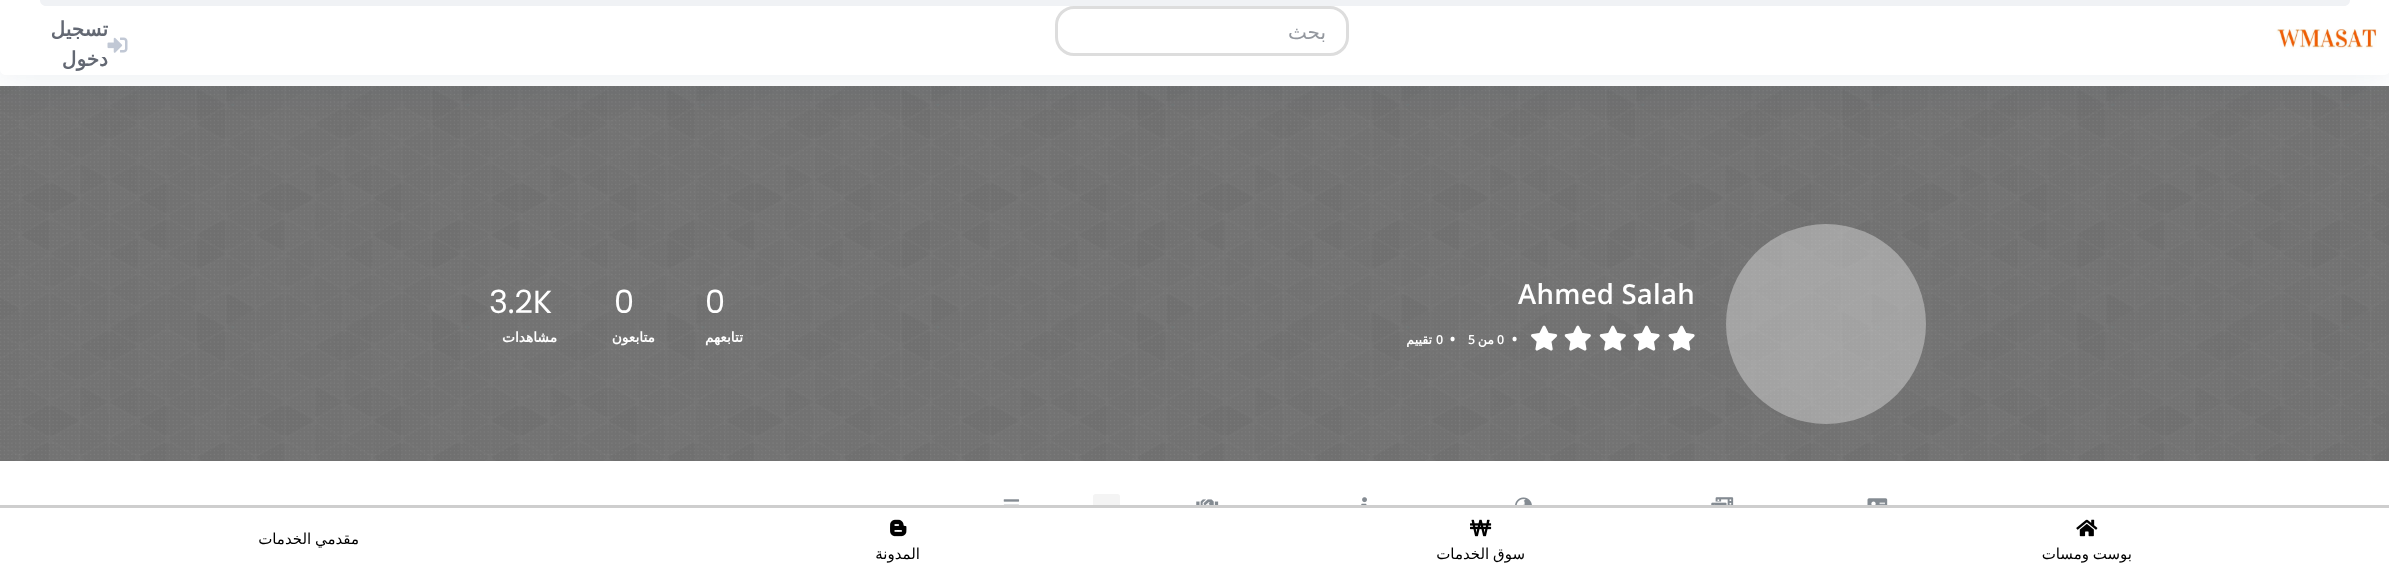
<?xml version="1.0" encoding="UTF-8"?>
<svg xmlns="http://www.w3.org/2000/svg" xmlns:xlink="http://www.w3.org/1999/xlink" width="2389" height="573">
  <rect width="100%" height="100%" fill="#ffffff" />
  <rect y="86" width="2389" height="375" fill="#757575" />
  <image x="0" y="86" width="2389" height="375" xlink:href="image3.png" />
  <image x="0" y="86" width="2386" height="373" xlink:href="image4.png" />
  <rect y="6" width="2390" height="75" rx="6" fill="#072456" fill-opacity="0.07" filter="blur(19px)" />
  <path d="M 0 0 h 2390 v 69 c 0 3.5 -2.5 6 -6 6 h -2378 c -3.5 0 -6 -2.5 -6 -6 z" fill="#ffffff" />
  <path d="M 40 0 h 2310 c 0 3.5 -2.5 6 -6 6 h -2298 c -3.5 0 -6 -2.5 -6 -6 z" fill="#f0f2f5" />
  <image x="2276" y="29" width="101" height="20" xlink:href="image1.png" />
  <rect x="1056.5" y="7.5" width="291" height="47" rx="17.5" fill="none" stroke="#dddddd" stroke-width="3" />
  <image x="107" y="37" width="21" height="16" xlink:href="image2.png" />
  <circle cx="1826" cy="324" r="100" fill="#ffffff" fill-opacity="0.35" />
  <image x="1668" y="325" width="27" height="26" xlink:href="image5.png" />
  <image x="1633" y="325" width="27" height="26" xlink:href="image6.png" />
  <image x="1599" y="325" width="27" height="26" xlink:href="image7.png" />
  <image x="1564" y="325" width="27" height="26" xlink:href="image8.png" />
  <image x="1531" y="325" width="27" height="26" xlink:href="image9.png" />
  <image x="1867" y="498" width="21" height="7" xlink:href="image10.png" />
  <image x="1711" y="497" width="23" height="8" xlink:href="image11.png" />
  <image x="1515" y="497" width="17" height="8" xlink:href="image12.png" />
  <image x="1361" y="497" width="6" height="8" xlink:href="image13.png" />
  <image x="1196" y="499" width="23" height="6" xlink:href="image14.png" />
  <rect x="1093" y="494" width="27" height="27" rx="2.5" fill="#f4f4f4" />
  <image x="1003" y="499" width="17" height="6" xlink:href="image15.png" />
  <rect x="1093" y="508" width="27" height="13" fill="#ffffff" />
  <rect y="505" width="2389" height="3" fill="#cecece" />
  <image x="2076" y="519" width="22" height="18" xlink:href="image16.png" />
  <image x="1470" y="519" width="22" height="18" xlink:href="image17.png" />
  <image x="890" y="519" width="17" height="18" xlink:href="image18.png" />
  <text x="1326" y="39" style="font-family: DejaVu Sans; font-size: 20px; direction: rtl; fill: #93979e">بحث</text>
  <text x="108" y="36" style="font-family: DejaVu Sans; font-size: 20px; font-weight: bold; direction: rtl; fill: #636873">تسجيل</text>
  <text x="108" y="66" style="font-family: DejaVu Sans; font-size: 20px; font-weight: bold; direction: rtl; fill: #636873">دخول</text>
  <text x="1518" y="304" style="font-family: Open Sans; font-size: 27.5px; font-weight: 600; letter-spacing: 0.25px; fill: #ffffff">Ahmed Salah</text>
  <text x="1511" y="346" style="font-family: Open Sans; font-size: 19px; fill: #ffffff">•</text>
  <text x="1497" y="344" style="font-family: Open Sans; font-size: 12.5px; font-weight: 600; fill: #ffffff">0</text>
  <text x="1494" y="344" style="font-family: DejaVu Sans; font-size: 12.5px; font-weight: bold; direction: rtl; fill: #ffffff">من</text>
  <text x="1468" y="344" style="font-family: Open Sans; font-size: 12.5px; font-weight: 600; fill: #ffffff">5</text>
  <text x="1449" y="346" style="font-family: Open Sans; font-size: 19px; fill: #ffffff">•</text>
  <text x="1436" y="344" style="font-family: Open Sans; font-size: 12.5px; font-weight: 600; fill: #ffffff">0</text>
  <text x="1432" y="344" style="font-family: DejaVu Sans; font-size: 12.5px; font-weight: bold; direction: rtl; fill: #ffffff">تقييم</text>
  <text x="705" y="313" style="font-family: Poppins; font-size: 32px; fill: #ffffff">0</text>
  <text x="743" y="342" style="font-family: DejaVu Sans; font-size: 13.75px; font-weight: bold; letter-spacing: 1.25px; direction: rtl; fill: #ffffff">تتابعهم</text>
  <text x="614" y="313" style="font-family: Poppins; font-size: 32px; fill: #ffffff">0</text>
  <text x="655" y="342" style="font-family: DejaVu Sans; font-size: 13.75px; font-weight: bold; letter-spacing: 1.25px; direction: rtl; fill: #ffffff">متابعون</text>
  <text x="489" y="313" style="font-family: Poppins; font-size: 32px; fill: #ffffff">3.2K</text>
  <text x="557" y="342" style="font-family: DejaVu Sans; font-size: 13.75px; font-weight: bold; letter-spacing: 1.25px; direction: rtl; fill: #ffffff">مشاهدات</text>
  <text x="359" y="544" word-spacing="-1" style="font-family: DejaVu Sans; font-size: 15px; direction: rtl; fill: #000000">مقدمي الخدمات</text>
  <text x="2132" y="559" word-spacing="-1" style="font-family: DejaVu Sans; font-size: 15px; direction: rtl; fill: #000000">بوست ومسات</text>
  <text x="1525" y="559" word-spacing="-1" style="font-family: DejaVu Sans; font-size: 15px; direction: rtl; fill: #000000">سوق الخدمات</text>
  <text x="920" y="559" style="font-family: DejaVu Sans; font-size: 15px; direction: rtl; fill: #000000">المدونة</text>
</svg>
